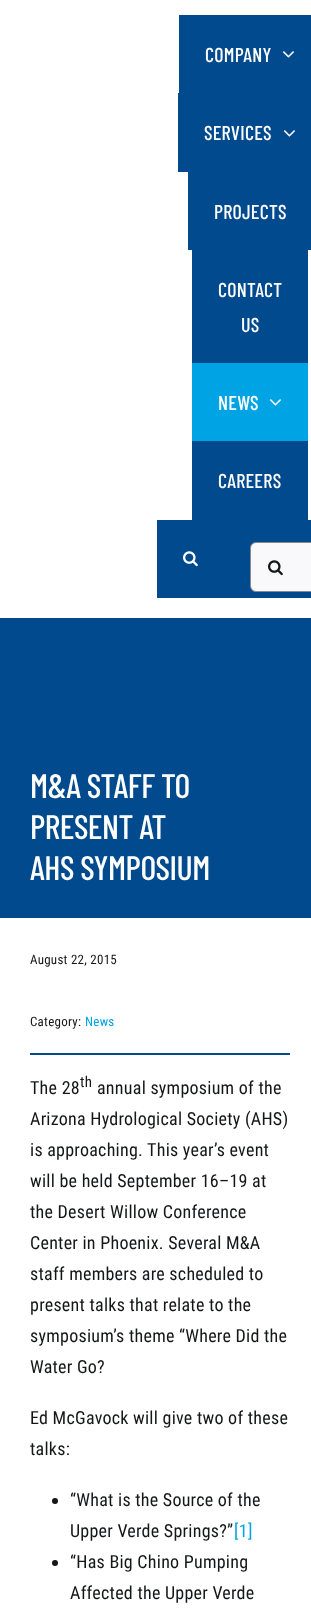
<?xml version="1.0" encoding="UTF-8"?>
<svg xmlns="http://www.w3.org/2000/svg" xmlns:xlink="http://www.w3.org/1999/xlink" width="311" height="1620">
  <rect width="100%" height="100%" fill="#ffffff" />
  <rect x="179" y="15" width="132" height="78" fill="#004a8d" />
  <image x="282" y="51" width="12" height="7" xlink:href="image1.png" />
  <rect x="178" y="93" width="133" height="79" fill="#004a8d" />
  <image x="283" y="130" width="12" height="7" xlink:href="image1.png" />
  <rect x="188" y="172" width="123" height="78" fill="#004a8d" />
  <rect x="192" y="250" width="116" height="113" fill="#004a8d" />
  <rect x="192" y="363" width="116" height="78" fill="#00a3e3" />
  <image x="269" y="399" width="12" height="7" xlink:href="image2.png" />
  <rect x="192" y="441" width="116" height="79" fill="#004a8d" />
  <rect x="157" y="520" width="154" height="78" fill="#004a8d" />
  <image x="183" y="551" width="15" height="16" xlink:href="image3.png" />
  <rect x="250.5" y="542.5" width="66" height="49" rx="5.5" fill="#f9f9fb" stroke="#888888" />
  <image x="268" y="560" width="15" height="16" xlink:href="image4.png" />
  <rect y="618" width="311" height="300" fill="#004a8d" />
  <rect x="30" y="1053" width="260" height="2" fill="#004a8d" />
  <circle cx="55" cy="1501" r="3" fill="#141617" />
  <circle cx="55" cy="1563" r="3" fill="#141617" />
  <text x="205" y="62" style="font-family: Barlow Condensed; font-size: 20px; font-weight: 500; letter-spacing: 0.25px; fill: #ffffff">COMPANY</text>
  <text x="204" y="140" style="font-family: Barlow Condensed; font-size: 20px; font-weight: 500; letter-spacing: 0.25px; fill: #ffffff">SERVICES</text>
  <text x="214" y="219" style="font-family: Barlow Condensed; font-size: 20px; font-weight: 500; letter-spacing: 0.25px; fill: #ffffff">PROJECTS</text>
  <text x="218" y="297" style="font-family: Barlow Condensed; font-size: 20px; font-weight: 500; letter-spacing: 0.25px; fill: #ffffff">CONTACT</text>
  <text x="241" y="332" style="font-family: Barlow Condensed; font-size: 20px; font-weight: 500; letter-spacing: 0.25px; fill: #ffffff">US</text>
  <text x="218" y="410" style="font-family: Barlow Condensed; font-size: 20px; font-weight: 500; letter-spacing: 0.25px; fill: #ffffff">NEWS</text>
  <text x="218" y="488" style="font-family: Barlow Condensed; font-size: 20px; font-weight: 500; letter-spacing: 0.25px; fill: #ffffff">CAREERS</text>
  <text x="30" y="798" style="font-family: Barlow Condensed; font-size: 34px; font-weight: 500; letter-spacing: -0.5px; fill: #ffffff">M&amp;A STAFF TO</text>
  <text x="30" y="839" style="font-family: Barlow Condensed; font-size: 34px; font-weight: 500; letter-spacing: -0.5px; fill: #ffffff">PRESENT AT</text>
  <text x="30" y="880" style="font-family: Barlow Condensed; font-size: 34px; font-weight: 500; letter-spacing: -0.5px; fill: #ffffff">AHS SYMPOSIUM</text>
  <text x="30" y="964" style="font-family: Roboto Condensed; font-size: 13px; letter-spacing: 0.25px; fill: #141617">August 22, 2015</text>
  <text x="30" y="1026" style="font-family: Roboto Condensed; font-size: 13px; letter-spacing: 0.25px; fill: #141617">Category:</text>
  <text x="85" y="1026" style="font-family: Roboto Condensed; font-size: 13px; letter-spacing: 0.25px; fill: #00a3e3">News</text>
  <text x="30" y="1094" style="font-family: Roboto Condensed; font-size: 18px; letter-spacing: 0.25px; fill: #141617">The 28</text>
  <text x="80" y="1087" style="font-family: Roboto Condensed; font-size: 15px; letter-spacing: 0.25px; fill: #141617">th</text>
  <text x="97" y="1094" style="font-family: Roboto Condensed; font-size: 18px; letter-spacing: 0.25px; fill: #141617">annual symposium of the</text>
  <text x="30" y="1125" style="font-family: Roboto Condensed; font-size: 18px; letter-spacing: 0.25px; fill: #141617">Arizona Hydrological Society (AHS)</text>
  <text x="30" y="1156" style="font-family: Roboto Condensed; font-size: 18px; letter-spacing: 0.25px; fill: #141617">is approaching. This year’s event</text>
  <text x="30" y="1187" style="font-family: Roboto Condensed; font-size: 18px; letter-spacing: 0.25px; fill: #141617">will be held September 16–19 at</text>
  <text x="30" y="1218" style="font-family: Roboto Condensed; font-size: 18px; letter-spacing: 0.25px; fill: #141617">the Desert Willow Conference</text>
  <text x="30" y="1249" style="font-family: Roboto Condensed; font-size: 18px; letter-spacing: 0.25px; fill: #141617">Center in Phoenix. Several M&amp;A</text>
  <text x="30" y="1280" style="font-family: Roboto Condensed; font-size: 18px; letter-spacing: 0.25px; fill: #141617">staff members are scheduled to</text>
  <text x="30" y="1311" style="font-family: Roboto Condensed; font-size: 18px; letter-spacing: 0.25px; fill: #141617">present talks that relate to the</text>
  <text x="30" y="1342" style="font-family: Roboto Condensed; font-size: 18px; letter-spacing: 0.25px; fill: #141617">symposium’s theme “Where Did the</text>
  <text x="30" y="1373" style="font-family: Roboto Condensed; font-size: 18px; letter-spacing: 0.25px; fill: #141617">Water Go?</text>
  <text x="30" y="1424" style="font-family: Roboto Condensed; font-size: 18px; letter-spacing: 0.25px; fill: #141617">Ed McGavock will give two of these</text>
  <text x="30" y="1455" style="font-family: Roboto Condensed; font-size: 18px; letter-spacing: 0.25px; fill: #141617">talks:</text>
  <text x="70" y="1506" style="font-family: Roboto Condensed; font-size: 18px; letter-spacing: 0.25px; fill: #141617">“What is the Source of the</text>
  <text x="70" y="1537" style="font-family: Roboto Condensed; font-size: 18px; letter-spacing: 0.25px; fill: #141617">Upper Verde Springs?”</text>
  <text x="234" y="1537" style="font-family: Roboto Condensed; font-size: 18px; letter-spacing: 0.25px; fill: #00a3e3">[1]</text>
  <text x="70" y="1568" style="font-family: Roboto Condensed; font-size: 18px; letter-spacing: 0.25px; fill: #141617">“Has Big Chino Pumping</text>
  <text x="70" y="1599" style="font-family: Roboto Condensed; font-size: 18px; letter-spacing: 0.25px; fill: #141617">Affected the Upper Verde</text>
</svg>
